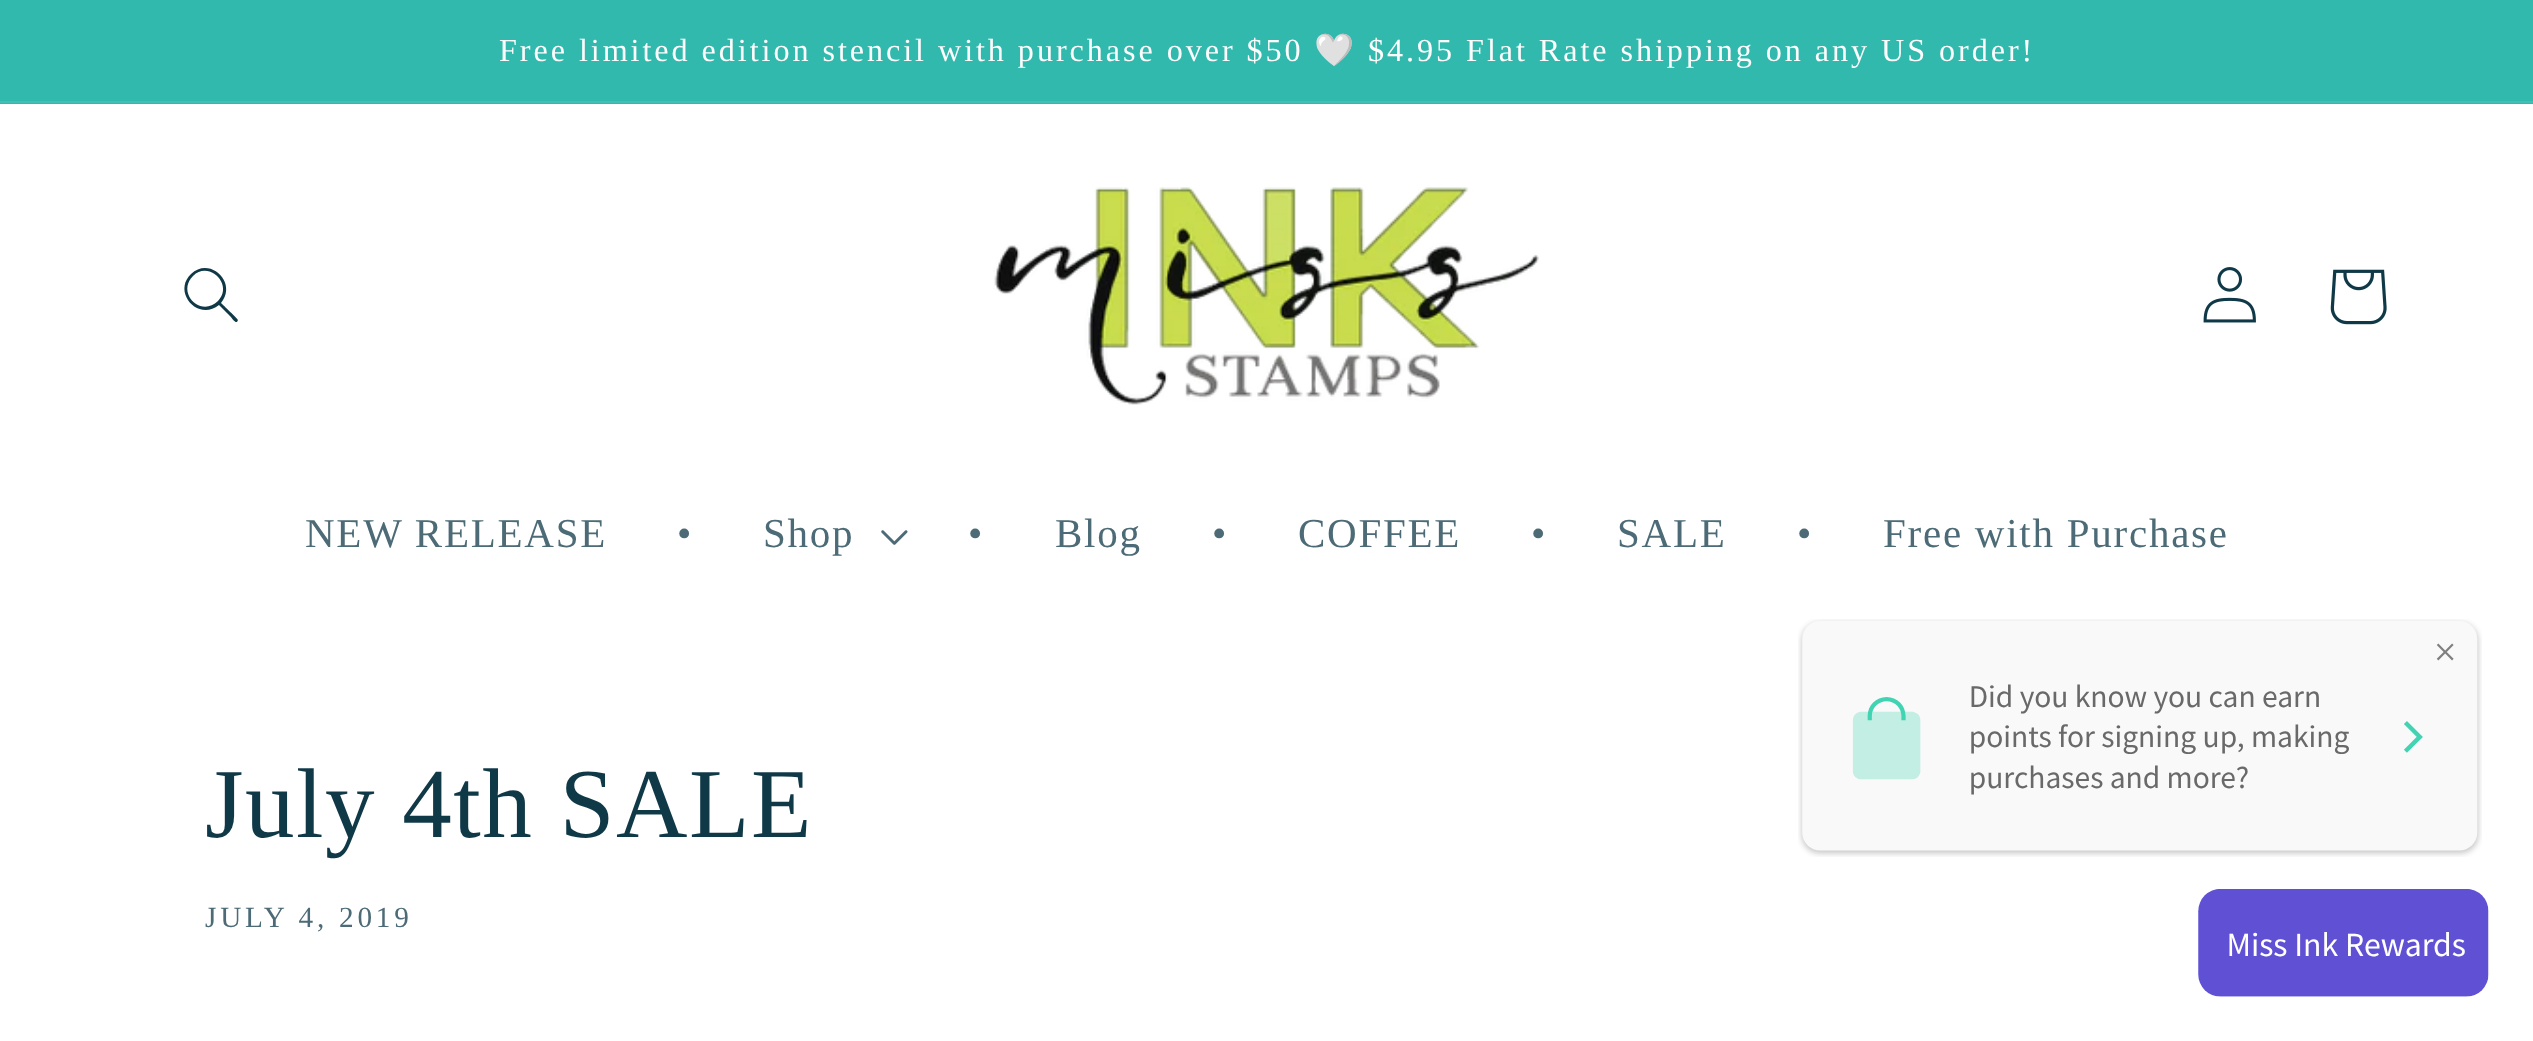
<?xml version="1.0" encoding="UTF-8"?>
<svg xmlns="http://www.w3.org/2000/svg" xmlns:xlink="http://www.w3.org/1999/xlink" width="2533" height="1041">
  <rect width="100%" height="100%" fill="#ffffff" />
  <rect width="2533" height="104" fill="#32b9ad" />
  <rect y="101" width="2533" height="2" fill="#42beb3" />
  <path d="M 218 301 c -17 17 -42 -8 -25 -25 c 16 -16 41 9 25 25 z m 1 4 c -21 17 -47 -13 -28 -31 c 19 -18 47 9 30 29 c 2 2 17 16 17 17 l -1 2 c -2 1 -6 -5 -7 -6 z" fill="#103948" fill-rule="evenodd" />
  <image x="993" y="187" width="546" height="218" xlink:href="image1.png" />
  <image x="2203" y="267" width="53" height="56" xlink:href="image2.png" />
  <image x="2330" y="269" width="57" height="56" xlink:href="image3.png" />
  <image x="881" y="530" width="27" height="15" xlink:href="image4.png" />
  <image x="1798" y="619" width="684" height="238" xlink:href="image5.png" />
  <image x="2198" y="889" width="291" height="108" xlink:href="image6.png" />
  <text x="499" y="61" style="font-family: Liberation Serif; font-size: 32.2px; letter-spacing: 2.93px; fill: #fcfcfc">Free limited edition stencil with purchase over $50</text>
  <text x="1314" y="61" style="font-family: Noto Color Emoji; font-size: 32.2px; letter-spacing: 2.93px; fill: #fcfcfc">🤍</text>
  <text x="1368" y="61" style="font-family: Liberation Serif; font-size: 32.2px; letter-spacing: 2.93px; fill: #fcfcfc">$4.95 Flat Rate shipping on any US order!</text>
  <text x="305" y="547" style="font-family: Liberation Serif; font-size: 41px; letter-spacing: 1.75px; fill: #4c6b76">NEW RELEASE</text>
  <text x="677" y="547" style="font-family: Liberation Serif; font-size: 41px; letter-spacing: 1.75px; fill: #4c6b76">•</text>
  <text x="763" y="547" style="font-family: Liberation Serif; font-size: 41px; letter-spacing: 1.75px; fill: #4c6b76">Shop</text>
  <text x="968" y="547" style="font-family: Liberation Serif; font-size: 41px; letter-spacing: 1.75px; fill: #4c6b76">•</text>
  <text x="1055" y="547" style="font-family: Liberation Serif; font-size: 41px; letter-spacing: 1.75px; fill: #4c6b76">Blog</text>
  <text x="1212" y="547" style="font-family: Liberation Serif; font-size: 41px; letter-spacing: 1.75px; fill: #4c6b76">•</text>
  <text x="1298" y="547" style="font-family: Liberation Serif; font-size: 41px; letter-spacing: 1.75px; fill: #4c6b76">COFFEE</text>
  <text x="1531" y="547" style="font-family: Liberation Serif; font-size: 41px; letter-spacing: 1.75px; fill: #4c6b76">•</text>
  <text x="1617" y="547" style="font-family: Liberation Serif; font-size: 41px; letter-spacing: 1.75px; fill: #4c6b76">SALE</text>
  <text x="1797" y="547" style="font-family: Liberation Serif; font-size: 41px; letter-spacing: 1.75px; fill: #4c6b76">•</text>
  <text x="1883" y="547" style="font-family: Liberation Serif; font-size: 41px; letter-spacing: 1.75px; fill: #4c6b76">Free with Purchase</text>
  <text x="205" y="837" style="font-family: Liberation Serif; font-size: 99px; letter-spacing: 1.5px; fill: #103948">July 4th SALE</text>
  <text x="205" y="927" style="font-family: Liberation Serif; font-size: 29.25px; letter-spacing: 3.75px; fill: #4c6b76">JULY 4, 2019</text>
</svg>
